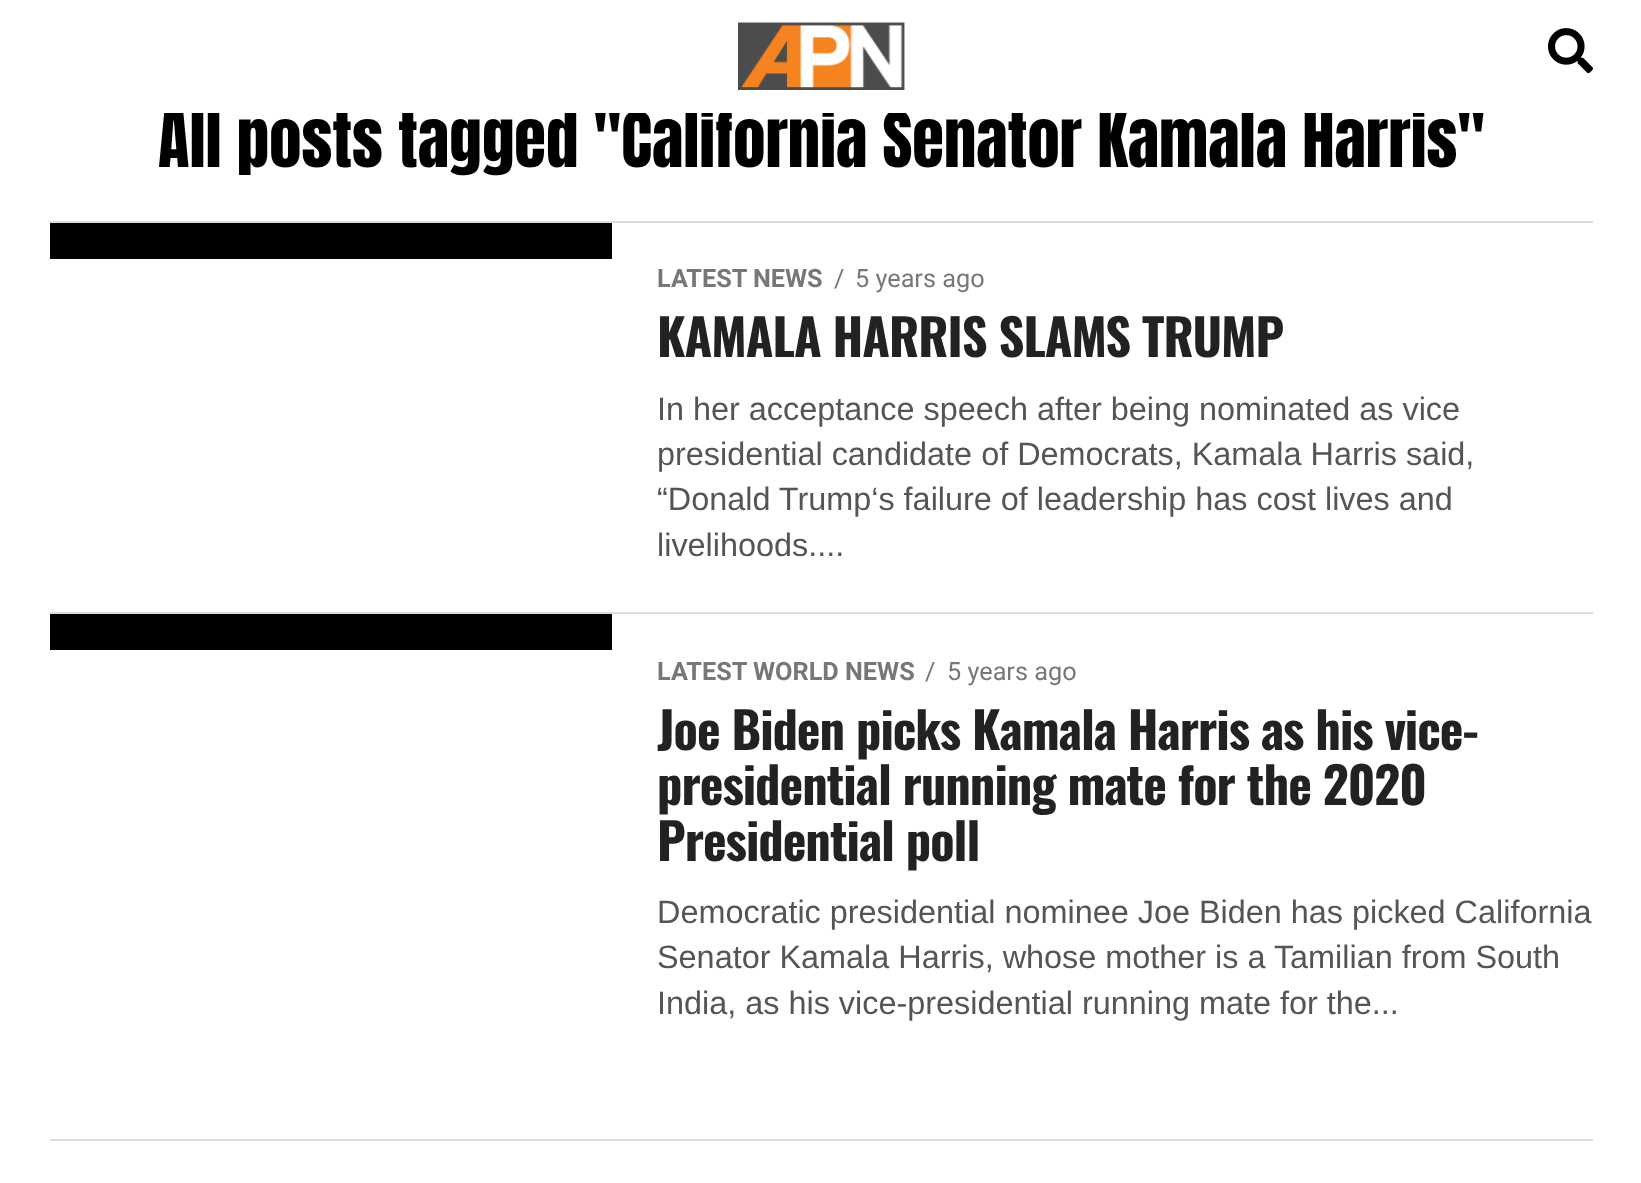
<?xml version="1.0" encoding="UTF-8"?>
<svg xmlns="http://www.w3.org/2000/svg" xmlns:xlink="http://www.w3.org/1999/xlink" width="1641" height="1183">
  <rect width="100%" height="100%" fill="#ffffff" />
  <image x="738" y="22" width="167" height="68" xlink:href="image1.png" />
  <image x="1548" y="28" width="45" height="46" xlink:href="image2.png" />
  <rect x="50" y="221" width="1543" height="2" fill="#dddddd" />
  <rect x="50" y="223" width="562" height="36" fill="#000000" />
  <rect x="50" y="612" width="1543" height="2" fill="#dddddd" />
  <rect x="50" y="614" width="562" height="36" fill="#000000" />
  <rect x="50" y="1139" width="1543" height="2" fill="#dddddd" />
  <text x="158" y="167" style="font-family: Anton; font-size: 64.8px; fill: #000000">All posts tagged "California Senator Kamala Harris"</text>
  <rect x="163" y="107" width="1321" height="6" fill="#ffffff" />
  <text x="657" y="287" style="font-family: Roboto; font-size: 25.25px; font-weight: bold; fill: #777777">LATEST NEWS</text>
  <text x="834" y="287" style="font-family: Roboto; font-size: 25.25px; fill: #777777">/</text>
  <text x="855" y="287" style="font-family: Roboto; font-size: 25.25px; fill: #777777">5 years ago</text>
  <text x="657" y="357" style="font-family: Oswald; font-size: 50.4px; font-weight: bold; letter-spacing: -1px; fill: #222222">KAMALA HARRIS SLAMS TRUMP</text>
  <text x="657" y="420" style="font-family: Liberation Sans; font-size: 32.4px; fill: #555555">In her acceptance speech after being nominated as vice</text>
  <text x="657" y="465" style="font-family: Liberation Sans; font-size: 32.4px; fill: #555555">presidential candidate of Democrats, Kamala Harris said,</text>
  <text x="657" y="510" style="font-family: Liberation Sans; font-size: 32.4px; fill: #555555">“Donald Trump‘s failure of leadership has cost lives and</text>
  <text x="657" y="556" style="font-family: Liberation Sans; font-size: 32.4px; fill: #555555">livelihoods....</text>
  <text x="657" y="680" style="font-family: Roboto; font-size: 25.25px; font-weight: bold; fill: #777777">LATEST WORLD NEWS</text>
  <text x="925" y="680" style="font-family: Roboto; font-size: 25.25px; fill: #777777">/</text>
  <text x="947" y="680" style="font-family: Roboto; font-size: 25.25px; fill: #777777">5 years ago</text>
  <text x="657" y="750" style="font-family: Oswald; font-size: 50.4px; font-weight: bold; letter-spacing: -1px; fill: #222222">Joe Biden picks Kamala Harris as his vice-</text>
  <text x="657" y="805" style="font-family: Oswald; font-size: 50.4px; font-weight: bold; letter-spacing: -1px; fill: #222222">presidential running mate for the 2020</text>
  <text x="657" y="861" style="font-family: Oswald; font-size: 50.4px; font-weight: bold; letter-spacing: -1px; fill: #222222">Presidential poll</text>
  <text x="657" y="923" style="font-family: Liberation Sans; font-size: 32.4px; fill: #555555">Democratic presidential nominee Joe Biden has picked California</text>
  <text x="657" y="968" style="font-family: Liberation Sans; font-size: 32.4px; fill: #555555">Senator Kamala Harris, whose mother is a Tamilian from South</text>
  <text x="657" y="1014" style="font-family: Liberation Sans; font-size: 32.4px; fill: #555555">India, as his vice-presidential running mate for the...</text>
</svg>
